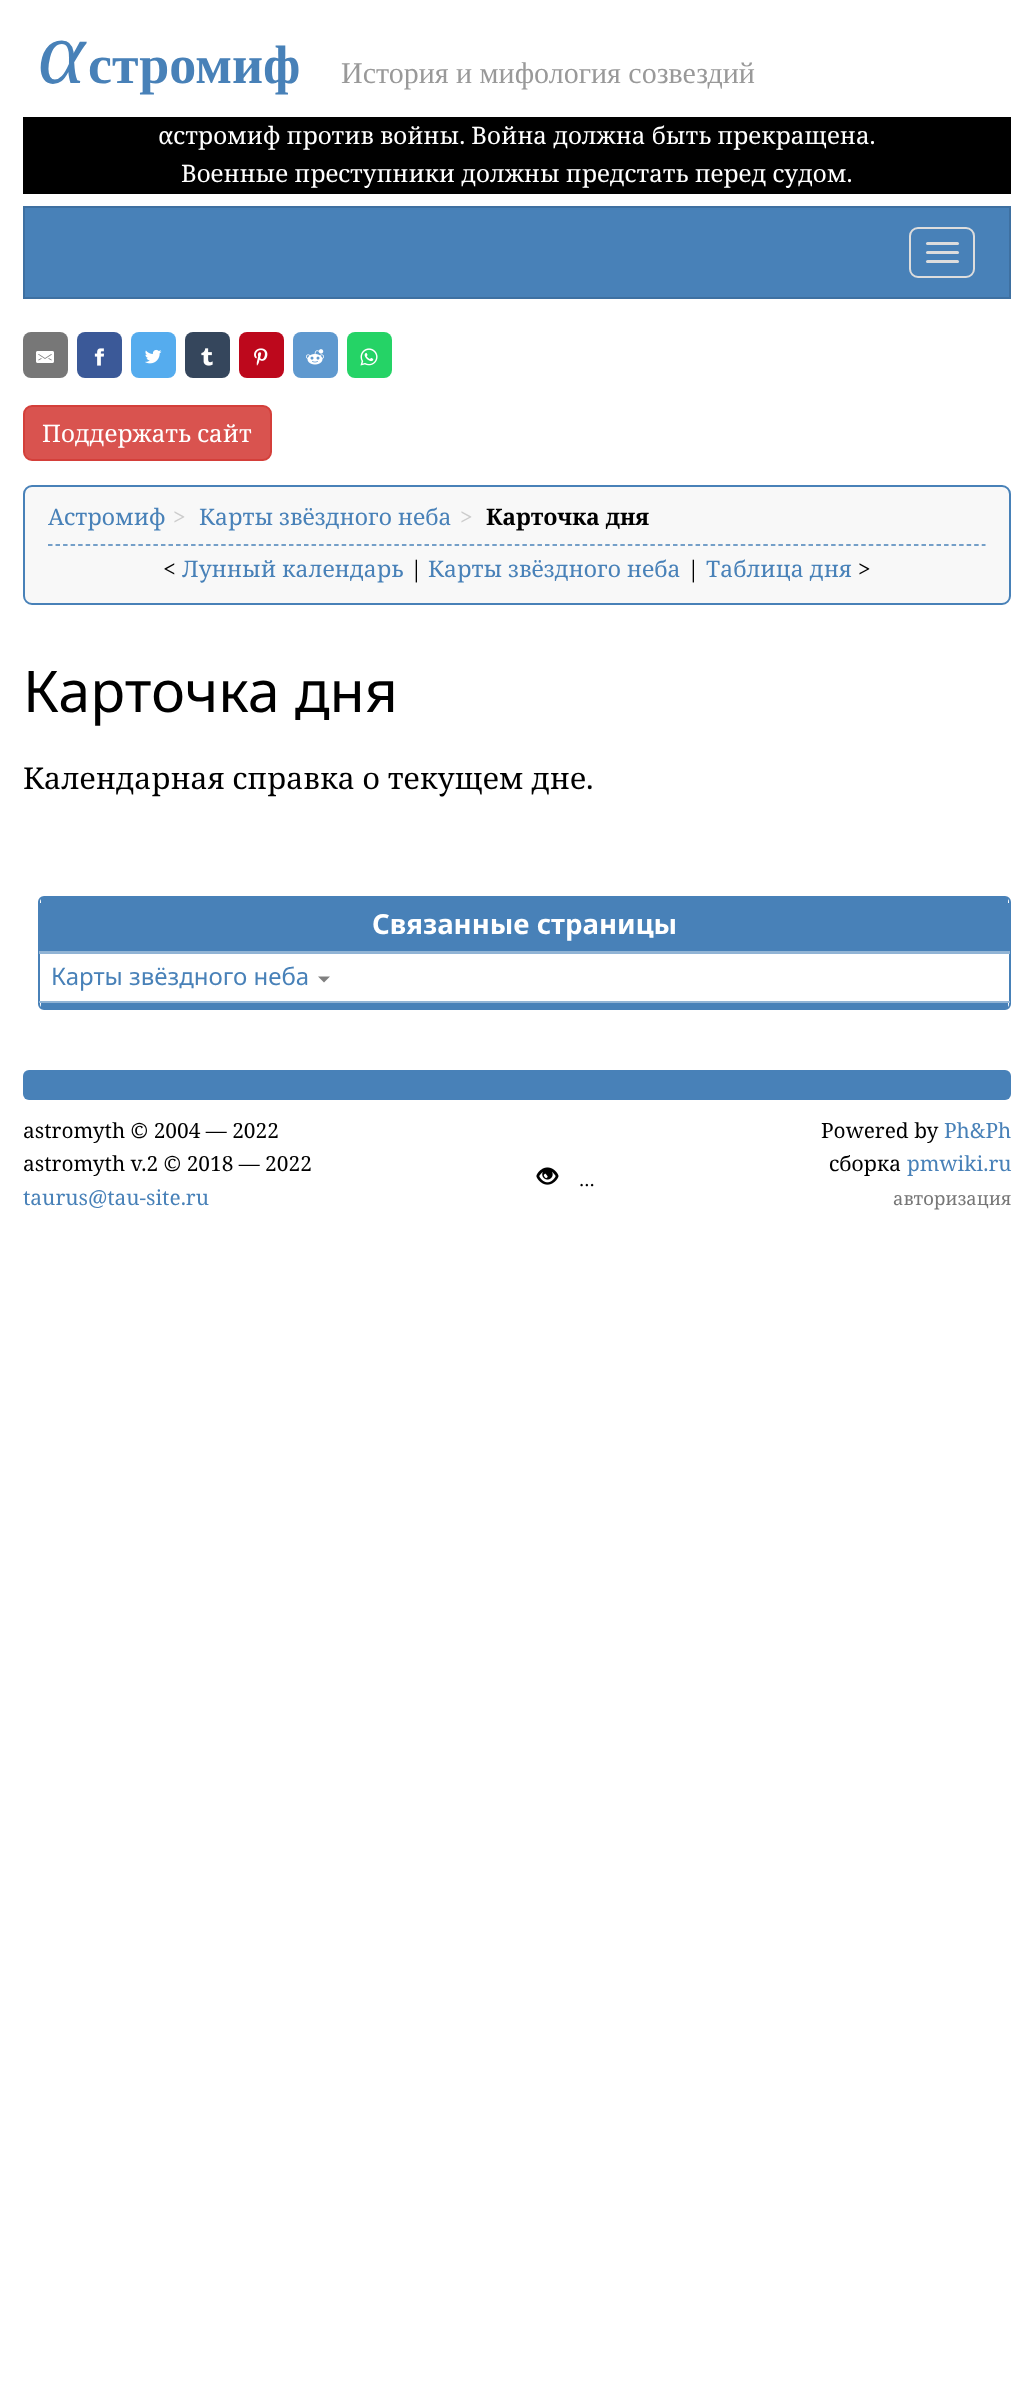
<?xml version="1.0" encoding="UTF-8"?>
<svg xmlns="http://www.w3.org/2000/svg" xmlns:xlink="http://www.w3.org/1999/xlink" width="1033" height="2408">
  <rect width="100%" height="100%" fill="#ffffff" />
  <rect x="23" y="117" width="988" height="77" fill="#000000" />
  <rect x="24" y="207" width="986" height="91" fill="#4881b8" stroke="#3e70a1" stroke-width="2" />
  <rect x="910" y="228" width="64" height="49" rx="8" fill="none" stroke="#dddddd" stroke-width="2" />
  <rect x="926" y="242" width="33" height="3" rx="1.5" fill="#dddddd" />
  <rect x="926" y="251" width="33" height="3" rx="1.5" fill="#dddddd" />
  <rect x="926" y="260" width="33" height="3" rx="1.5" fill="#dddddd" />
  <rect x="23" y="332" width="45" height="46" rx="8" fill="#777777" />
  <image x="36" y="351" width="18" height="12" xlink:href="image1.png" />
  <rect x="77" y="332" width="45" height="46" rx="8" fill="#3b5998" />
  <image x="94" y="348" width="11" height="18" xlink:href="image2.png" />
  <rect x="131" y="332" width="45" height="46" rx="8" fill="#55acee" />
  <image x="145" y="349" width="17" height="15" xlink:href="image3.png" />
  <rect x="185" y="332" width="45" height="46" rx="8" fill="#35465c" />
  <image x="201" y="348" width="12" height="18" xlink:href="image4.png" />
  <rect x="239" y="332" width="45" height="46" rx="8" fill="#bd081c" />
  <image x="254" y="348" width="14" height="18" xlink:href="image5.png" />
  <rect x="293" y="332" width="45" height="46" rx="8" fill="#5f99cf" />
  <image x="306" y="349" width="18" height="16" xlink:href="image6.png" />
  <rect x="347" y="332" width="45" height="46" rx="8" fill="#25d366" />
  <image x="360" y="348" width="18" height="18" xlink:href="image7.png" />
  <rect x="24" y="406" width="247" height="54" rx="8" fill="#d9534f" stroke="#d43f3a" stroke-width="2" />
  <rect x="24" y="486" width="986" height="118" rx="8" fill="#f8f8f8" stroke="#4881b8" stroke-width="2" />
  <path d="M 48 545 h 937.5" fill="none" stroke="#4881b8" stroke-width="1.5" stroke-dasharray="4.5 3.03" />
  <rect x="39" y="897" width="971" height="112" rx="5" fill="none" stroke="#4881b8" stroke-width="2" />
  <rect x="41" y="898" width="967" height="5" fill="#4881b8" />
  <rect x="41" y="1003" width="967" height="5" fill="#4881b8" />
  <rect x="40" y="903" width="969" height="48" fill="#4881b8" />
  <rect x="39" y="951" width="971" height="3" fill="#91b4d5" />
  <rect x="39" y="1001" width="971" height="2" fill="#91b4d5" />
  <path d="M 318 976.5 h 12 l -6 6 z" fill="#808080" />
  <rect x="23" y="1070" width="988" height="30" rx="6" fill="#4881b8" />
  <image x="536" y="1167" width="23" height="18" xlink:href="image8.png" />
  <text x="38" y="83" style="font-family: Liberation Serif; font-size: 90px; font-style: italic; fill: #4881b8">α</text>
  <text x="88" y="83" style="font-family: Liberation Serif; font-size: 54px; font-weight: bold; fill: #4881b8">стромиф</text>
  <text x="341" y="83" style="font-family: Liberation Serif; font-size: 30px; fill: #999999">История и мифология созвездий</text>
  <text x="158" y="144" style="font-family: Noto Serif; font-size: 24px; fill: #ffffff">αстромиф против войны. Война должна быть прекращена.</text>
  <text x="181" y="182" style="font-family: Noto Serif; font-size: 24px; fill: #ffffff">Военные преступники должны предстать перед судом.</text>
  <text x="42" y="442" style="font-family: Noto Serif; font-size: 24px; fill: #ffffff">Поддержать сайт</text>
  <text x="48" y="525" style="font-family: Noto Serif; font-size: 22.75px; fill: #4881b8">Астромиф</text>
  <text x="173" y="525" style="font-family: Noto Serif; font-size: 22.75px; fill: #cccccc">&gt;</text>
  <text x="199" y="525" style="font-family: Noto Serif; font-size: 22.75px; fill: #4881b8">Карты звёздного неба</text>
  <text x="460" y="525" style="font-family: Noto Serif; font-size: 22.75px; fill: #cccccc">&gt;</text>
  <text x="486" y="525" style="font-family: Noto Serif; font-size: 22.75px; font-weight: bold; fill: #000000">Карточка дня</text>
  <text x="163" y="577" style="font-family: Noto Serif; font-size: 22.75px; fill: #000000">&lt;</text>
  <text x="182" y="577" style="font-family: Noto Serif; font-size: 22.75px; fill: #4881b8">Лунный календарь</text>
  <text x="410" y="577" style="font-family: Noto Serif; font-size: 22.75px; fill: #000000">|</text>
  <text x="428" y="577" style="font-family: Noto Serif; font-size: 22.75px; fill: #4881b8">Карты звёздного неба</text>
  <text x="687" y="577" style="font-family: Noto Serif; font-size: 22.75px; fill: #000000">|</text>
  <text x="706" y="577" style="font-family: Noto Serif; font-size: 22.75px; fill: #4881b8">Таблица дня</text>
  <text x="858" y="577" style="font-family: Noto Serif; font-size: 22.75px; fill: #000000">&gt;</text>
  <text x="23" y="712" style="font-family: Noto Sans; font-size: 57.5px; fill: #000000">Карточка дня</text>
  <text x="23" y="789" style="font-family: Noto Serif; font-size: 30px; fill: #000000">Календарная справка о текущем дне.</text>
  <text x="372" y="934" style="font-family: Noto Sans; font-size: 27.6px; font-weight: bold; fill: #ffffff">Связанные страницы</text>
  <text x="51" y="985" style="font-family: Noto Sans; font-size: 24px; fill: #4881b8">Карты звёздного неба</text>
  <text x="23" y="1138" style="font-family: Noto Serif; font-size: 20.9px; fill: #000000">astromyth © 2004 — 2022</text>
  <text x="23" y="1171" style="font-family: Noto Serif; font-size: 20.9px; fill: #000000">astromyth v.2 © 2018 — 2022</text>
  <text x="23" y="1205" style="font-family: Noto Serif; font-size: 20.9px; fill: #4881b8">taurus@tau-site.ru</text>
  <text x="579" y="1186" style="font-family: Liberation Serif; font-size: 20.9px; fill: #000000">...</text>
  <text x="821" y="1138" style="font-family: Noto Serif; font-size: 20.9px; fill: #000000">Powered by</text>
  <text x="944" y="1138" style="font-family: Noto Serif; font-size: 20.9px; fill: #4881b8">Ph&amp;Ph</text>
  <text x="829" y="1171" style="font-family: Noto Serif; font-size: 20.9px; fill: #000000">сборка</text>
  <text x="907" y="1171" style="font-family: Noto Serif; font-size: 20.9px; fill: #4881b8">pmwiki.ru</text>
  <text x="893" y="1205" style="font-family: Noto Serif; font-size: 18.25px; fill: #777777">авторизация</text>
</svg>
